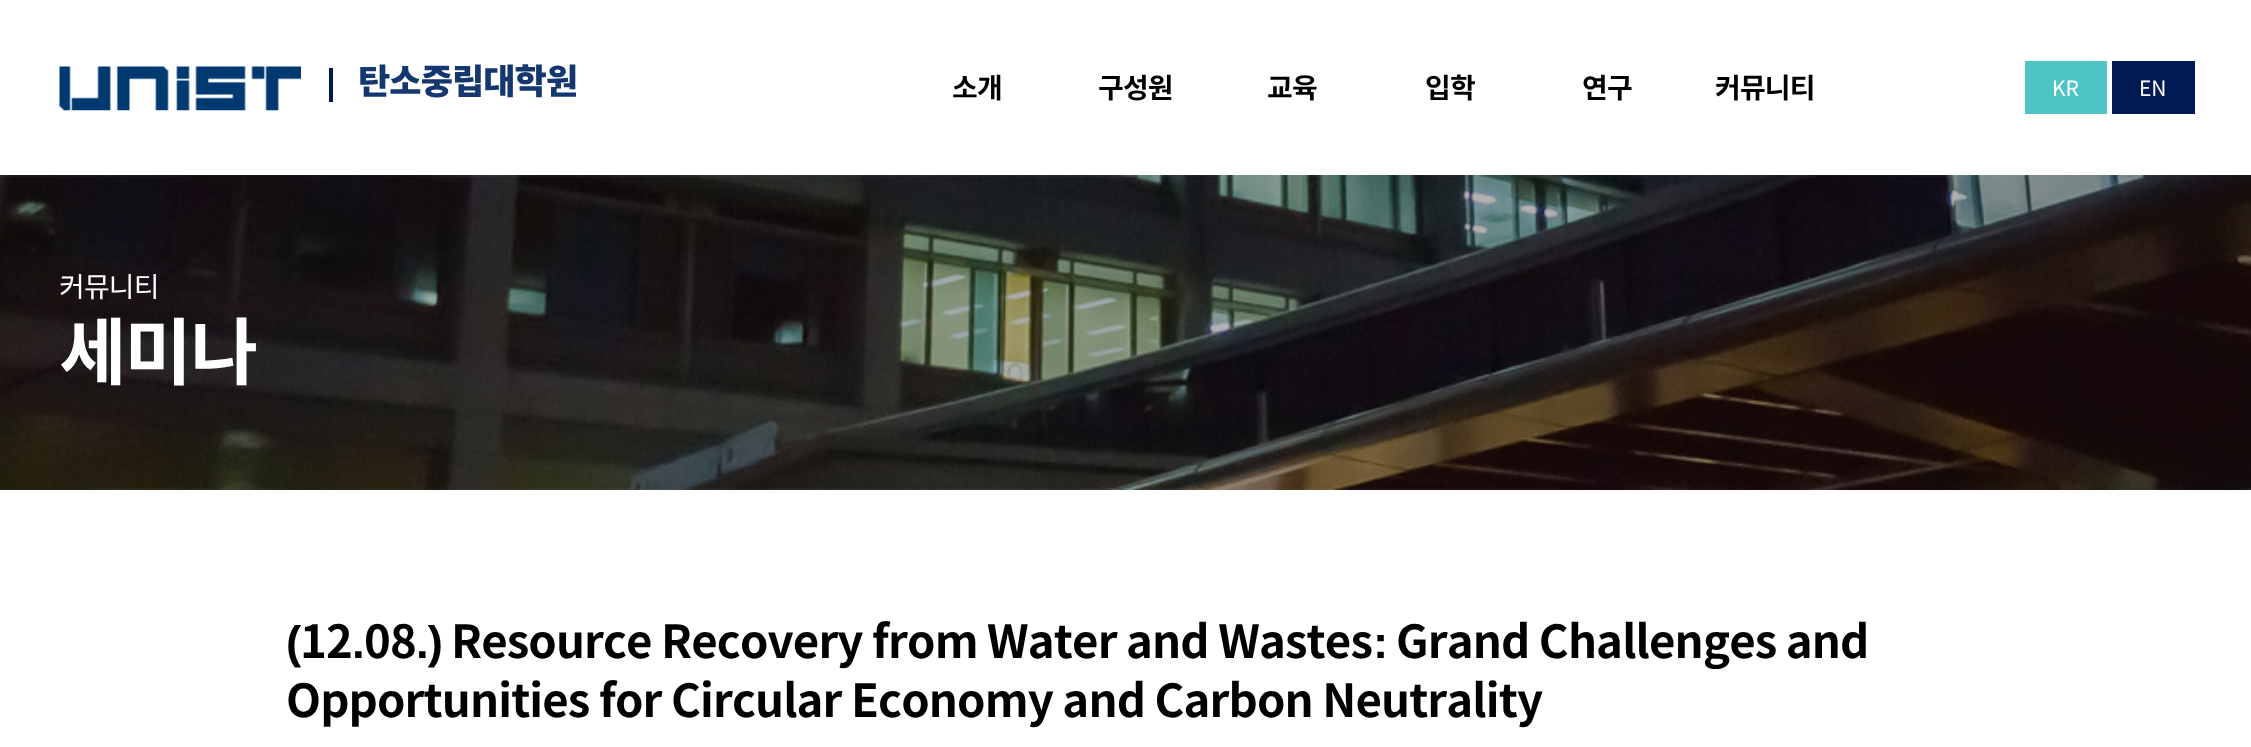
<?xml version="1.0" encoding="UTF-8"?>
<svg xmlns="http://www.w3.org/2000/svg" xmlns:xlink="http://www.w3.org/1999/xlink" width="2251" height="747">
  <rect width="100%" height="100%" fill="#ffffff" />
  <image x="59" y="66" width="242" height="45" xlink:href="image1.png" />
  <rect x="329" y="68" width="4" height="34" fill="#011655" />
  <rect x="2025" y="61" width="82" height="53" fill="#4ec4c7" />
  <rect x="2112" y="61" width="83" height="53" fill="#001b54" />
  <image x="0" y="175" width="2251" height="315" xlink:href="image2.png" />
  <text x="358" y="94" style="font-family: Noto Sans CJK KR; font-size: 35px; font-weight: 900; letter-spacing: -0.88px; fill: #143770">탄소중립대학원</text>
  <text x="952" y="98" style="font-family: Noto Sans CJK KR; font-size: 28px; font-weight: bold; letter-spacing: -0.88px; fill: #000000">소개</text>
  <text x="1098" y="98" style="font-family: Noto Sans CJK KR; font-size: 28px; font-weight: bold; letter-spacing: -0.88px; fill: #000000">구성원</text>
  <text x="1267" y="98" style="font-family: Noto Sans CJK KR; font-size: 28px; font-weight: bold; letter-spacing: -0.88px; fill: #000000">교육</text>
  <text x="1425" y="98" style="font-family: Noto Sans CJK KR; font-size: 28px; font-weight: bold; letter-spacing: -0.88px; fill: #000000">입학</text>
  <text x="1582" y="98" style="font-family: Noto Sans CJK KR; font-size: 28px; font-weight: bold; letter-spacing: -0.88px; fill: #000000">연구</text>
  <text x="1715" y="98" style="font-family: Noto Sans CJK KR; font-size: 28px; font-weight: bold; letter-spacing: -0.88px; fill: #000000">커뮤니티</text>
  <text x="2052" y="96" style="font-family: Noto Sans CJK KR; font-size: 21px; fill: #ffffff">KR</text>
  <text x="2139" y="96" style="font-family: Noto Sans CJK KR; font-size: 21px; fill: #ffffff">EN</text>
  <text x="59" y="297" style="font-family: Noto Sans CJK KR; font-size: 28px; letter-spacing: -0.88px; fill: #ffffff">커뮤니티</text>
  <text x="59" y="379" style="font-family: Noto Sans CJK KR; font-size: 73.5px; font-weight: bold; letter-spacing: -2px; fill: #ffffff">세미나</text>
  <text x="286" y="658" style="font-family: Liberation Sans; font-size: 45.5px; font-weight: bold; letter-spacing: -0.88px; fill: #000000">(</text>
  <text x="300" y="658" style="font-family: Noto Sans CJK KR; font-size: 45.5px; font-weight: bold; letter-spacing: -0.88px; fill: #000000">12</text>
  <text x="352" y="658" style="font-family: Liberation Sans; font-size: 45.5px; font-weight: bold; letter-spacing: -0.88px; fill: #000000">.</text>
  <text x="364" y="658" style="font-family: Noto Sans CJK KR; font-size: 45.5px; font-weight: bold; letter-spacing: -0.88px; fill: #000000">08</text>
  <text x="416" y="658" style="font-family: Liberation Sans; font-size: 45.5px; font-weight: bold; letter-spacing: -0.88px; fill: #000000">.)</text>
  <text x="451" y="658" style="font-family: Noto Sans CJK KR; font-size: 45.5px; font-weight: bold; letter-spacing: -0.88px; fill: #000000">Resource Recovery from Water and Wastes</text>
  <text x="1373" y="658" style="font-family: Liberation Sans; font-size: 45.5px; font-weight: bold; letter-spacing: -0.88px; fill: #000000">:</text>
  <text x="1396" y="658" style="font-family: Noto Sans CJK KR; font-size: 45.5px; font-weight: bold; letter-spacing: -0.88px; fill: #000000">Grand Challenges and</text>
  <text x="286" y="717" style="font-family: Noto Sans CJK KR; font-size: 45.5px; font-weight: bold; letter-spacing: -0.88px; fill: #000000">Opportunities for Circular Economy and Carbon Neutrality</text>
</svg>
